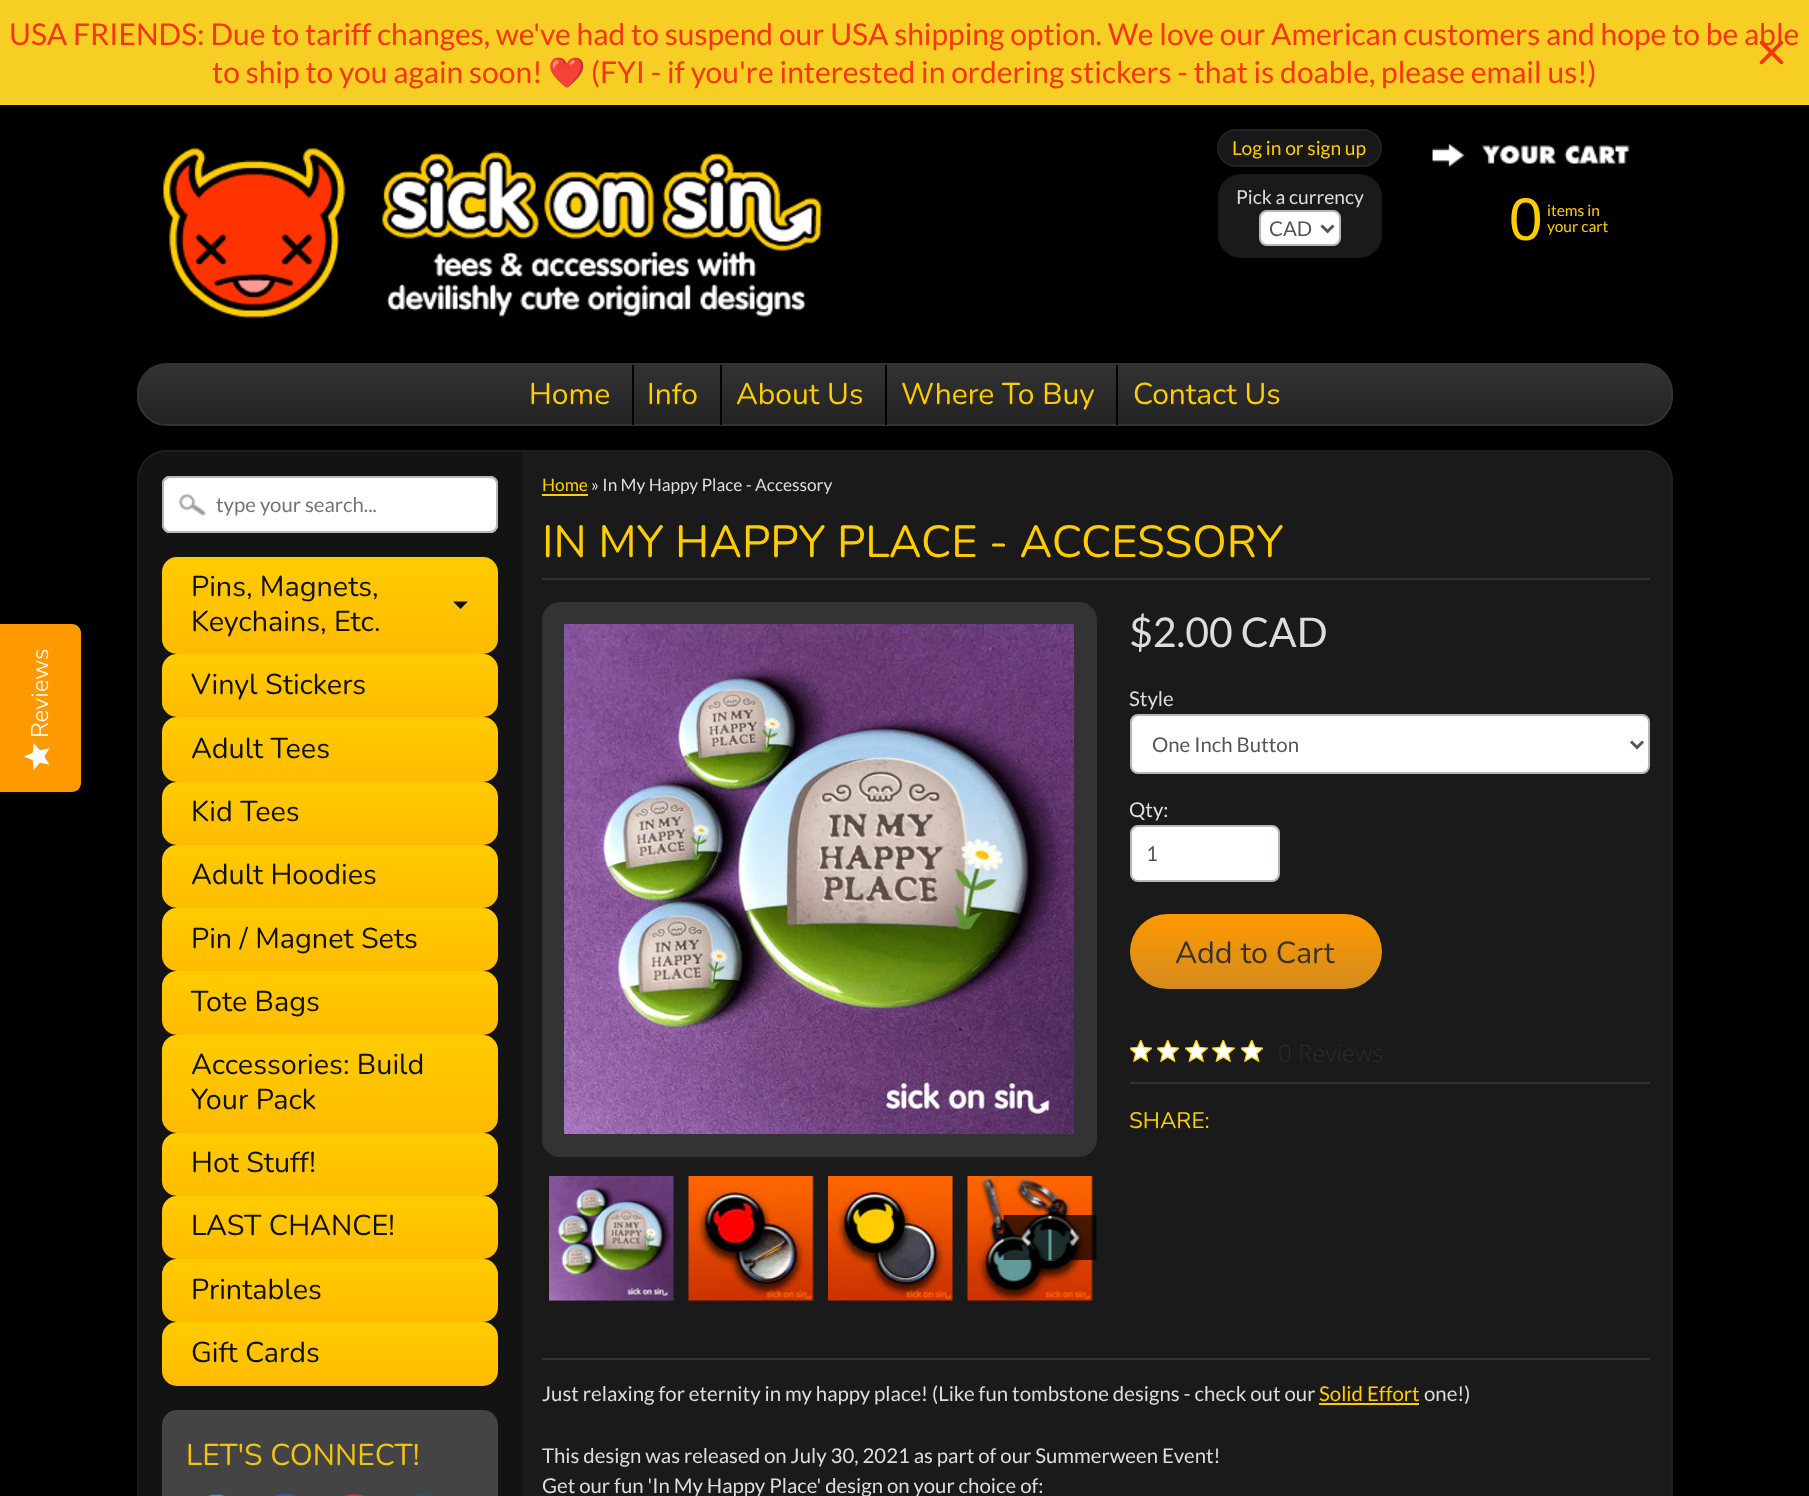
<?xml version="1.0" encoding="UTF-8"?>
<svg xmlns="http://www.w3.org/2000/svg" xmlns:xlink="http://www.w3.org/1999/xlink" width="1809" height="1496">
  <defs>
    <clipPath id="clip1"><rect x="137" y="363" width="1536" height="63" rx="30" /></clipPath>
    <linearGradient id="g1" gradientUnits="userSpaceOnUse" x1="905" y1="364" x2="905" y2="425"><stop offset="0" stop-color="#333333" /><stop offset="1" stop-color="#222222" /></linearGradient>
    <linearGradient id="g2" gradientUnits="userSpaceOnUse" x1="330" y1="557" x2="330" y2="654"><stop offset="0" stop-color="#ffcc00" /><stop offset="1" stop-color="#ffbb00" /></linearGradient>
    <linearGradient id="g3" gradientUnits="userSpaceOnUse" x1="330" y1="654" x2="330" y2="717"><stop offset="0" stop-color="#ffcc00" /><stop offset="1" stop-color="#ffbb00" /></linearGradient>
    <linearGradient id="g4" gradientUnits="userSpaceOnUse" x1="330" y1="717" x2="330" y2="782"><stop offset="0" stop-color="#ffcc00" /><stop offset="1" stop-color="#ffbb00" /></linearGradient>
    <linearGradient id="g5" gradientUnits="userSpaceOnUse" x1="330" y1="782" x2="330" y2="845"><stop offset="0" stop-color="#ffcc00" /><stop offset="1" stop-color="#ffbb00" /></linearGradient>
    <linearGradient id="g6" gradientUnits="userSpaceOnUse" x1="330" y1="845" x2="330" y2="908"><stop offset="0" stop-color="#ffcc00" /><stop offset="1" stop-color="#ffbb00" /></linearGradient>
    <linearGradient id="g7" gradientUnits="userSpaceOnUse" x1="330" y1="908" x2="330" y2="971"><stop offset="0" stop-color="#ffcc00" /><stop offset="1" stop-color="#ffbb00" /></linearGradient>
    <linearGradient id="g8" gradientUnits="userSpaceOnUse" x1="330" y1="971" x2="330" y2="1035"><stop offset="0" stop-color="#ffcc00" /><stop offset="1" stop-color="#ffbb00" /></linearGradient>
    <linearGradient id="g9" gradientUnits="userSpaceOnUse" x1="330" y1="1035" x2="330" y2="1133"><stop offset="0" stop-color="#ffcc00" /><stop offset="1" stop-color="#ffbb00" /></linearGradient>
    <linearGradient id="g10" gradientUnits="userSpaceOnUse" x1="330" y1="1133" x2="330" y2="1196"><stop offset="0" stop-color="#ffcc00" /><stop offset="1" stop-color="#ffbb00" /></linearGradient>
    <linearGradient id="g11" gradientUnits="userSpaceOnUse" x1="330" y1="1196" x2="330" y2="1259"><stop offset="0" stop-color="#ffcc00" /><stop offset="1" stop-color="#ffbb00" /></linearGradient>
    <linearGradient id="g12" gradientUnits="userSpaceOnUse" x1="330" y1="1259" x2="330" y2="1322"><stop offset="0" stop-color="#ffcc00" /><stop offset="1" stop-color="#ffbb00" /></linearGradient>
    <linearGradient id="g13" gradientUnits="userSpaceOnUse" x1="330" y1="1322" x2="330" y2="1386"><stop offset="0" stop-color="#ffcc00" /><stop offset="1" stop-color="#ffbb00" /></linearGradient>
    <linearGradient id="g14" gradientUnits="userSpaceOnUse" x1="1256" y1="914" x2="1256" y2="989"><stop offset="0" stop-color="#ff9900" /><stop offset="1" stop-color="#d48b1e" /></linearGradient>
  </defs>
  <rect width="100%" height="100%" fill="#000000" />
  <rect width="1809" height="105" fill="#f7ce24" />
  <path d="M 0 792 v -168 h 72 c 5 0 9 4 9 9 v 150 c 0 5 -4 9 -9 9 z" fill="#ff9900" />
  <image x="24" y="743" width="26" height="27" xlink:href="image2.png" />
  <image x="163" y="148" width="660" height="171" xlink:href="image3.png" />
  <rect x="1218" y="130" width="163" height="36" rx="18" fill="#181818" stroke="#222222" stroke-width="2" />
  <rect x="1218" y="174" width="164" height="84" rx="23" fill="#1a1a1a" />
  <rect x="1260" y="211" width="80" height="34" rx="7" fill="#ffffff" stroke="#b2b9bd" stroke-width="2" />
  <path d="M 1321.5 225.5 l 6 6 l 6 -6" fill="none" stroke="#555555" stroke-width="3" />
  <image x="1432" y="143" width="198" height="24" xlink:href="image4.png" />
  <g clip-path="url(#clip1)">
    <rect x="137" y="365" width="1536" height="60" fill="url(#g1)" />
  </g>
  <rect x="138" y="364" width="1534" height="61" rx="29" fill="none" stroke="#333333" stroke-width="2" />
  <rect x="632" y="365" width="2" height="60" fill="#000000" />
  <rect x="720" y="365" width="2" height="60" fill="#000000" />
  <rect x="885" y="365" width="2" height="60" fill="#000000" />
  <rect x="1116" y="365" width="2" height="60" fill="#000000" />
  <rect x="137" y="450" width="1536" height="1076" rx="30" fill="#1a1a1a" />
  <rect x="138" y="451" width="1534" height="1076" rx="29" fill="none" stroke="#222222" stroke-opacity="0.7" stroke-width="2" />
  <path d="M 167 452 h 355 v 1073 h -384 v -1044 c 0 -16 13 -29 29 -29 z" fill="#000000" fill-opacity="0.25" />
  <rect x="162" y="476" width="336" height="57" rx="8" fill="#ffffff" />
  <image x="178" y="493" width="28" height="23" xlink:href="image5.png" />
  <rect x="163" y="477" width="334" height="55" rx="7" fill="none" stroke="#b2b9bd" stroke-width="2" />
  <rect x="162" y="557" width="336" height="97" rx="15" fill="url(#g2)" />
  <path d="M 453 601.5 h 15 l -7.5 7.5 z" fill="#111111" />
  <rect x="162" y="654" width="336" height="63" rx="15" fill="url(#g3)" />
  <rect x="162" y="717" width="336" height="65" rx="15" fill="url(#g4)" />
  <rect x="162" y="782" width="336" height="63" rx="15" fill="url(#g5)" />
  <rect x="162" y="845" width="336" height="63" rx="15" fill="url(#g6)" />
  <rect x="162" y="908" width="336" height="63" rx="15" fill="url(#g7)" />
  <rect x="162" y="971" width="336" height="64" rx="15" fill="url(#g8)" />
  <rect x="162" y="1035" width="336" height="98" rx="15" fill="url(#g9)" />
  <rect x="162" y="1133" width="336" height="63" rx="15" fill="url(#g10)" />
  <rect x="162" y="1196" width="336" height="63" rx="15" fill="url(#g11)" />
  <rect x="162" y="1259" width="336" height="63" rx="15" fill="url(#g12)" />
  <rect x="162" y="1322" width="336" height="64" rx="15" fill="url(#g13)" />
  <rect x="162" y="1410" width="336" height="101" rx="15" fill="#444444" />
  <image x="207" y="1494" width="19" height="2" xlink:href="image6.png" />
  <image x="274" y="1494" width="23" height="2" xlink:href="image7.png" />
  <image x="344" y="1494" width="20" height="2" xlink:href="image8.png" />
  <image x="413" y="1494" width="19" height="2" xlink:href="image9.png" />
  <rect x="542" y="494" width="46" height="2" fill="#ffcc00" />
  <rect x="542" y="578" width="1108" height="2" fill="#333333" />
  <rect x="543" y="603" width="553" height="553" rx="17" fill="#333333" stroke="#333333" stroke-width="2" />
  <image x="564" y="624" width="510" height="510" xlink:href="image10.png" />
  <image x="549" y="1176" width="125" height="125" xlink:href="image11.png" />
  <image x="688" y="1176" width="126" height="125" xlink:href="image12.png" />
  <image x="828" y="1176" width="125" height="125" xlink:href="image13.png" />
  <image x="967" y="1176" width="126" height="125" xlink:href="image14.png" />
  <image x="1003" y="1215" width="46" height="45" xlink:href="image15.png" />
  <image x="1051" y="1215" width="46" height="45" xlink:href="image16.png" />
  <rect x="1131" y="715" width="518" height="58" rx="7" fill="#ffffff" stroke="#b2b9bd" stroke-width="2" />
  <path d="M 1631 741.5 l 6 6 l 6 -6" fill="none" stroke="#555555" stroke-width="3" />
  <rect x="1131" y="826" width="148" height="55" rx="7" fill="#ffffff" stroke="#b2b9bd" stroke-width="2" />
  <rect x="1130" y="914" width="252" height="75" rx="37.5" fill="url(#g14)" />
  <image x="1130" y="1040" width="22" height="22" xlink:href="image17.png" />
  <image x="1157" y="1040" width="22" height="22" xlink:href="image17.png" />
  <image x="1185" y="1040" width="23" height="22" xlink:href="image18.png" />
  <image x="1212" y="1040" width="23" height="22" xlink:href="image18.png" />
  <image x="1241" y="1040" width="22" height="22" xlink:href="image17.png" />
  <rect x="1130" y="1082" width="520" height="2" fill="#333333" />
  <rect x="542" y="1358" width="1108" height="2" fill="#333333" />
  <rect x="1319" y="1403" width="100" height="2" fill="#ffcc00" />
  <text x="9" y="45" style="font-family: Lato; font-size: 30px; fill: #f53514">USA FRIENDS: Due to tariff changes, we've had to suspend our USA shipping option. We love our American customers and hope to be able</text>
  <text x="212" y="83" style="font-family: Lato; font-size: 30px; fill: #f53514">to ship to you again soon!</text>
  <text x="548" y="83" style="font-family: Noto Color Emoji; font-size: 30px; fill: #f53514">❤️</text>
  <text x="591" y="83" style="font-family: Lato; font-size: 30px; fill: #f53514">(FYI - if you're interested in ordering stickers - that is doable, please email us!)</text>
  <image x="1759" y="40" width="25" height="25" xlink:href="image1.png" />
  <text x="48" y="738" transform="rotate(-90 48 738)" style="font-family: Nunito Sans; font-size: 24px; font-weight: 300; fill: #fefefe">Reviews</text>
  <text x="1232" y="155" style="font-family: Lato; font-size: 19.25px; fill: #ffcc00">Log in or sign up</text>
  <text x="1236" y="204" style="font-family: Lato; font-size: 19.25px; fill: #dddddd">Pick a currency</text>
  <text x="1269" y="236" style="font-family: Lato; font-size: 20.4px; fill: #555555">CAD</text>
  <text x="1509" y="240" style="font-family: Liberation Sans; font-size: 60px; fill: #ffcc00">0</text>
  <text x="1547" y="216" style="font-family: Lato; font-size: 15.5px; fill: #ffcc00">items in</text>
  <text x="1547" y="232" style="font-family: Lato; font-size: 15.5px; fill: #ffcc00">your cart</text>
  <text x="529" y="404" style="font-family: Nunito; font-size: 30px; fill: #ffcc00">Home</text>
  <text x="647" y="404" style="font-family: Nunito; font-size: 30px; fill: #ffcc00">Info</text>
  <text x="736" y="404" style="font-family: Nunito; font-size: 30px; fill: #ffcc00">About Us</text>
  <text x="901" y="404" style="font-family: Nunito; font-size: 30px; fill: #ffcc00">Where To Buy</text>
  <text x="1133" y="404" style="font-family: Nunito; font-size: 30px; fill: #ffcc00">Contact Us</text>
  <text x="216" y="512" style="font-family: Lato; font-size: 20.4px; fill: #757575">type your search...</text>
  <text x="191" y="596" style="font-family: Nunito; font-size: 28.75px; fill: #111111">Pins, Magnets,</text>
  <text x="191" y="631" style="font-family: Nunito; font-size: 28.75px; fill: #111111">Keychains, Etc.</text>
  <text x="191" y="694" style="font-family: Nunito; font-size: 28.75px; fill: #111111">Vinyl Stickers</text>
  <text x="191" y="758" style="font-family: Nunito; font-size: 28.75px; fill: #111111">Adult Tees</text>
  <text x="191" y="821" style="font-family: Nunito; font-size: 28.75px; fill: #111111">Kid Tees</text>
  <text x="191" y="884" style="font-family: Nunito; font-size: 28.75px; fill: #111111">Adult Hoodies</text>
  <text x="191" y="948" style="font-family: Nunito; font-size: 28.75px; fill: #111111">Pin / Magnet Sets</text>
  <text x="191" y="1011" style="font-family: Nunito; font-size: 28.75px; fill: #111111">Tote Bags</text>
  <text x="191" y="1074" style="font-family: Nunito; font-size: 28.75px; fill: #111111">Accessories: Build</text>
  <text x="191" y="1109" style="font-family: Nunito; font-size: 28.75px; fill: #111111">Your Pack</text>
  <text x="191" y="1172" style="font-family: Nunito; font-size: 28.75px; fill: #111111">Hot Stuff!</text>
  <text x="191" y="1235" style="font-family: Nunito; font-size: 28.75px; fill: #111111">LAST CHANCE!</text>
  <text x="191" y="1299" style="font-family: Nunito; font-size: 28.75px; fill: #111111">Printables</text>
  <text x="191" y="1362" style="font-family: Nunito; font-size: 28.75px; fill: #111111">Gift Cards</text>
  <text x="186" y="1465" style="font-family: Nunito; font-size: 30px; fill: #f1c40f">LET'S CONNECT!</text>
  <text x="542" y="491" style="font-family: Lato; font-size: 17.3px; fill: #ffcc00">Home</text>
  <text x="591" y="491" style="font-family: Lato; font-size: 17.3px; fill: #dddddd">» In My Happy Place - Accessory</text>
  <text x="542" y="557" style="font-family: Nunito; font-size: 44.9px; fill: #ffcc00">IN MY HAPPY PLACE - ACCESSORY</text>
  <text x="1129" y="647" style="font-family: Lato; font-size: 41px; fill: #dddddd">$2.00 CAD</text>
  <text x="1129" y="706" style="font-family: Lato; font-size: 20.4px; fill: #dddddd">Style</text>
  <text x="1152" y="752" style="font-family: Lato; font-size: 20.4px; fill: #555555">One Inch Button</text>
  <text x="1129" y="817" style="font-family: Lato; font-size: 20.4px; fill: #dddddd">Qty:</text>
  <text x="1146" y="861" style="font-family: Lato; font-size: 20.4px; fill: #555555">1</text>
  <text x="1175" y="963" style="font-family: Nunito; font-size: 30.5px; fill: #333333">Add to Cart</text>
  <text x="1278" y="1062" style="font-family: Open Sans; font-size: 24px; font-weight: 300; fill: #2c2c2c">0 Reviews</text>
  <text x="1129" y="1128" style="font-family: Nunito; font-size: 22.5px; fill: #ffcc00">SHARE:</text>
  <text x="542" y="1401" style="font-family: Lato; font-size: 20.4px; fill: #dddddd">Just relaxing for eternity in my happy place! (Like fun tombstone designs - check out our</text>
  <text x="1319" y="1401" style="font-family: Lato; font-size: 20.4px; fill: #ffcc00">Solid Effort</text>
  <text x="1424" y="1401" style="font-family: Lato; font-size: 20.4px; fill: #dddddd">one!)</text>
  <text x="542" y="1463" style="font-family: Lato; font-size: 20.4px; fill: #dddddd">This design was released on July 30, 2021 as part of our Summerween Event!</text>
  <text x="542" y="1493" style="font-family: Lato; font-size: 20.4px; fill: #dddddd">Get our fun 'In My Happy Place' design on your choice of:</text>
</svg>
